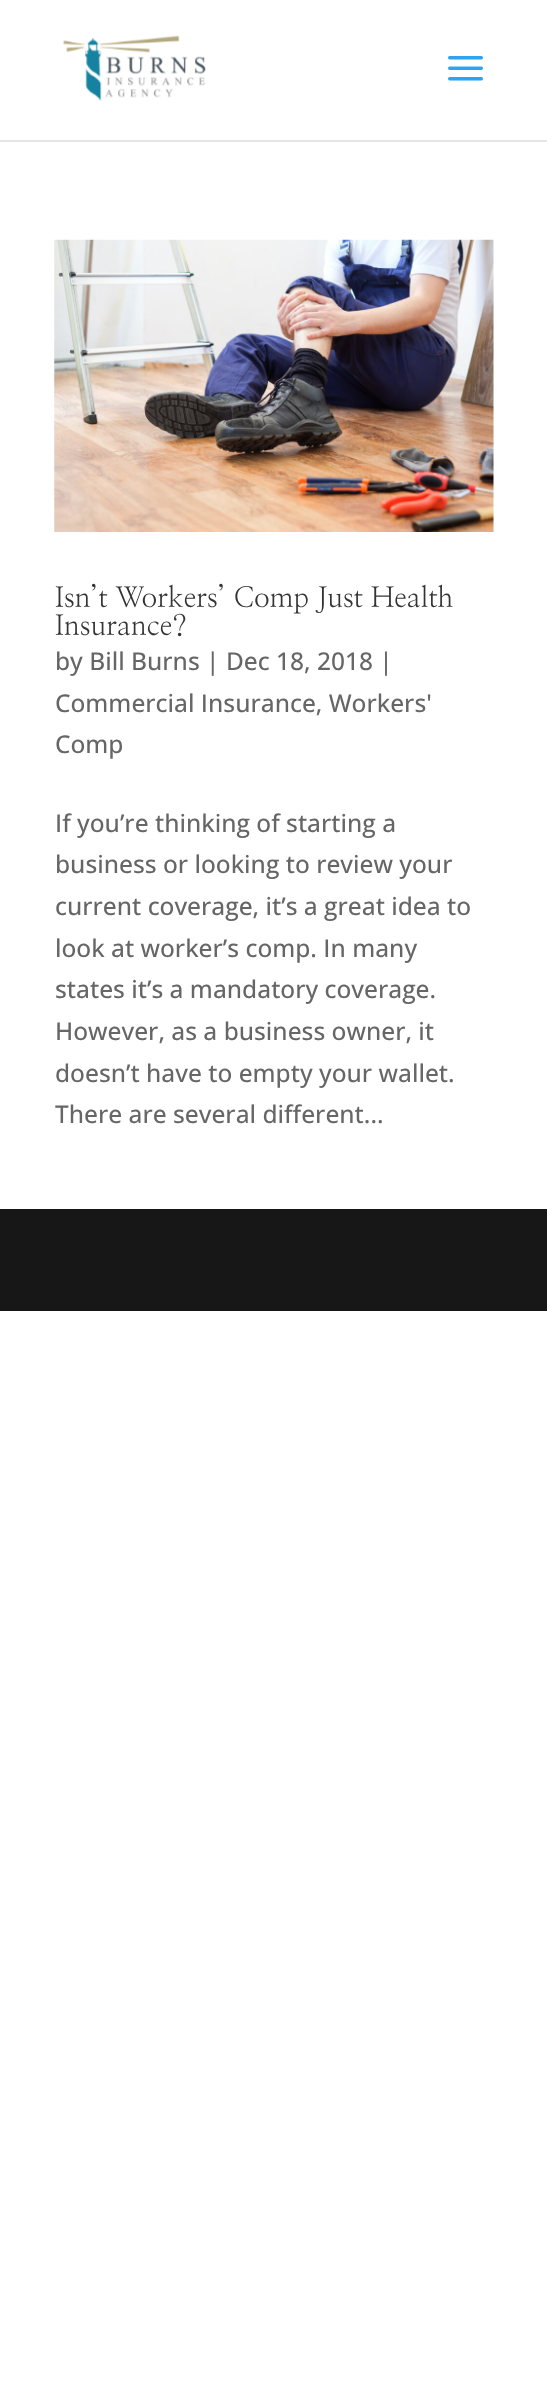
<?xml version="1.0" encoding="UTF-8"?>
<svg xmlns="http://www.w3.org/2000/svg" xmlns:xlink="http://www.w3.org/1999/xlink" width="547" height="2390">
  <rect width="100%" height="100%" fill="#ffffff" />
  <path d="M 0 140 v 2 h 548 v -140 v 138 z" fill="#e6e6e6" />
  <image x="63" y="35" width="143" height="66" xlink:href="image1.png" />
  <image x="448" y="56" width="35" height="25" xlink:href="image2.png" />
  <image x="54" y="239" width="440" height="293" xlink:href="image3.png" />
  <rect y="1209" width="547" height="102" fill="#171717" />
  <text x="55" y="607" style="font-family: NanumMyeongjo; font-size: 28px; fill: #333333">Isn’t Workers’ Comp Just Health</text>
  <text x="55" y="635" style="font-family: NanumMyeongjo; font-size: 28px; fill: #333333">Insurance?</text>
  <text x="55" y="670" style="font-family: Open Sans; font-size: 24.5px; font-weight: 500; fill: #666666">by Bill Burns | Dec 18, 2018 |</text>
  <text x="55" y="712" style="font-family: Open Sans; font-size: 24.5px; font-weight: 500; fill: #666666">Commercial Insurance, Workers'</text>
  <text x="55" y="753" style="font-family: Open Sans; font-size: 24.5px; font-weight: 500; fill: #666666">Comp</text>
  <text x="55" y="832" style="font-family: Open Sans; font-size: 24.5px; font-weight: 500; fill: #666666">If you’re thinking of starting a</text>
  <text x="55" y="873" style="font-family: Open Sans; font-size: 24.5px; font-weight: 500; fill: #666666">business or looking to review your</text>
  <text x="55" y="915" style="font-family: Open Sans; font-size: 24.5px; font-weight: 500; fill: #666666">current coverage, it’s a great idea to</text>
  <text x="55" y="957" style="font-family: Open Sans; font-size: 24.5px; font-weight: 500; fill: #666666">look at worker’s comp. In many</text>
  <text x="55" y="998" style="font-family: Open Sans; font-size: 24.5px; font-weight: 500; fill: #666666">states it’s a mandatory coverage.</text>
  <text x="55" y="1040" style="font-family: Open Sans; font-size: 24.5px; font-weight: 500; fill: #666666">However, as a business owner, it</text>
  <text x="55" y="1082" style="font-family: Open Sans; font-size: 24.5px; font-weight: 500; fill: #666666">doesn’t have to empty your wallet.</text>
  <text x="55" y="1123" style="font-family: Open Sans; font-size: 24.5px; font-weight: 500; fill: #666666">There are several different...</text>
</svg>
